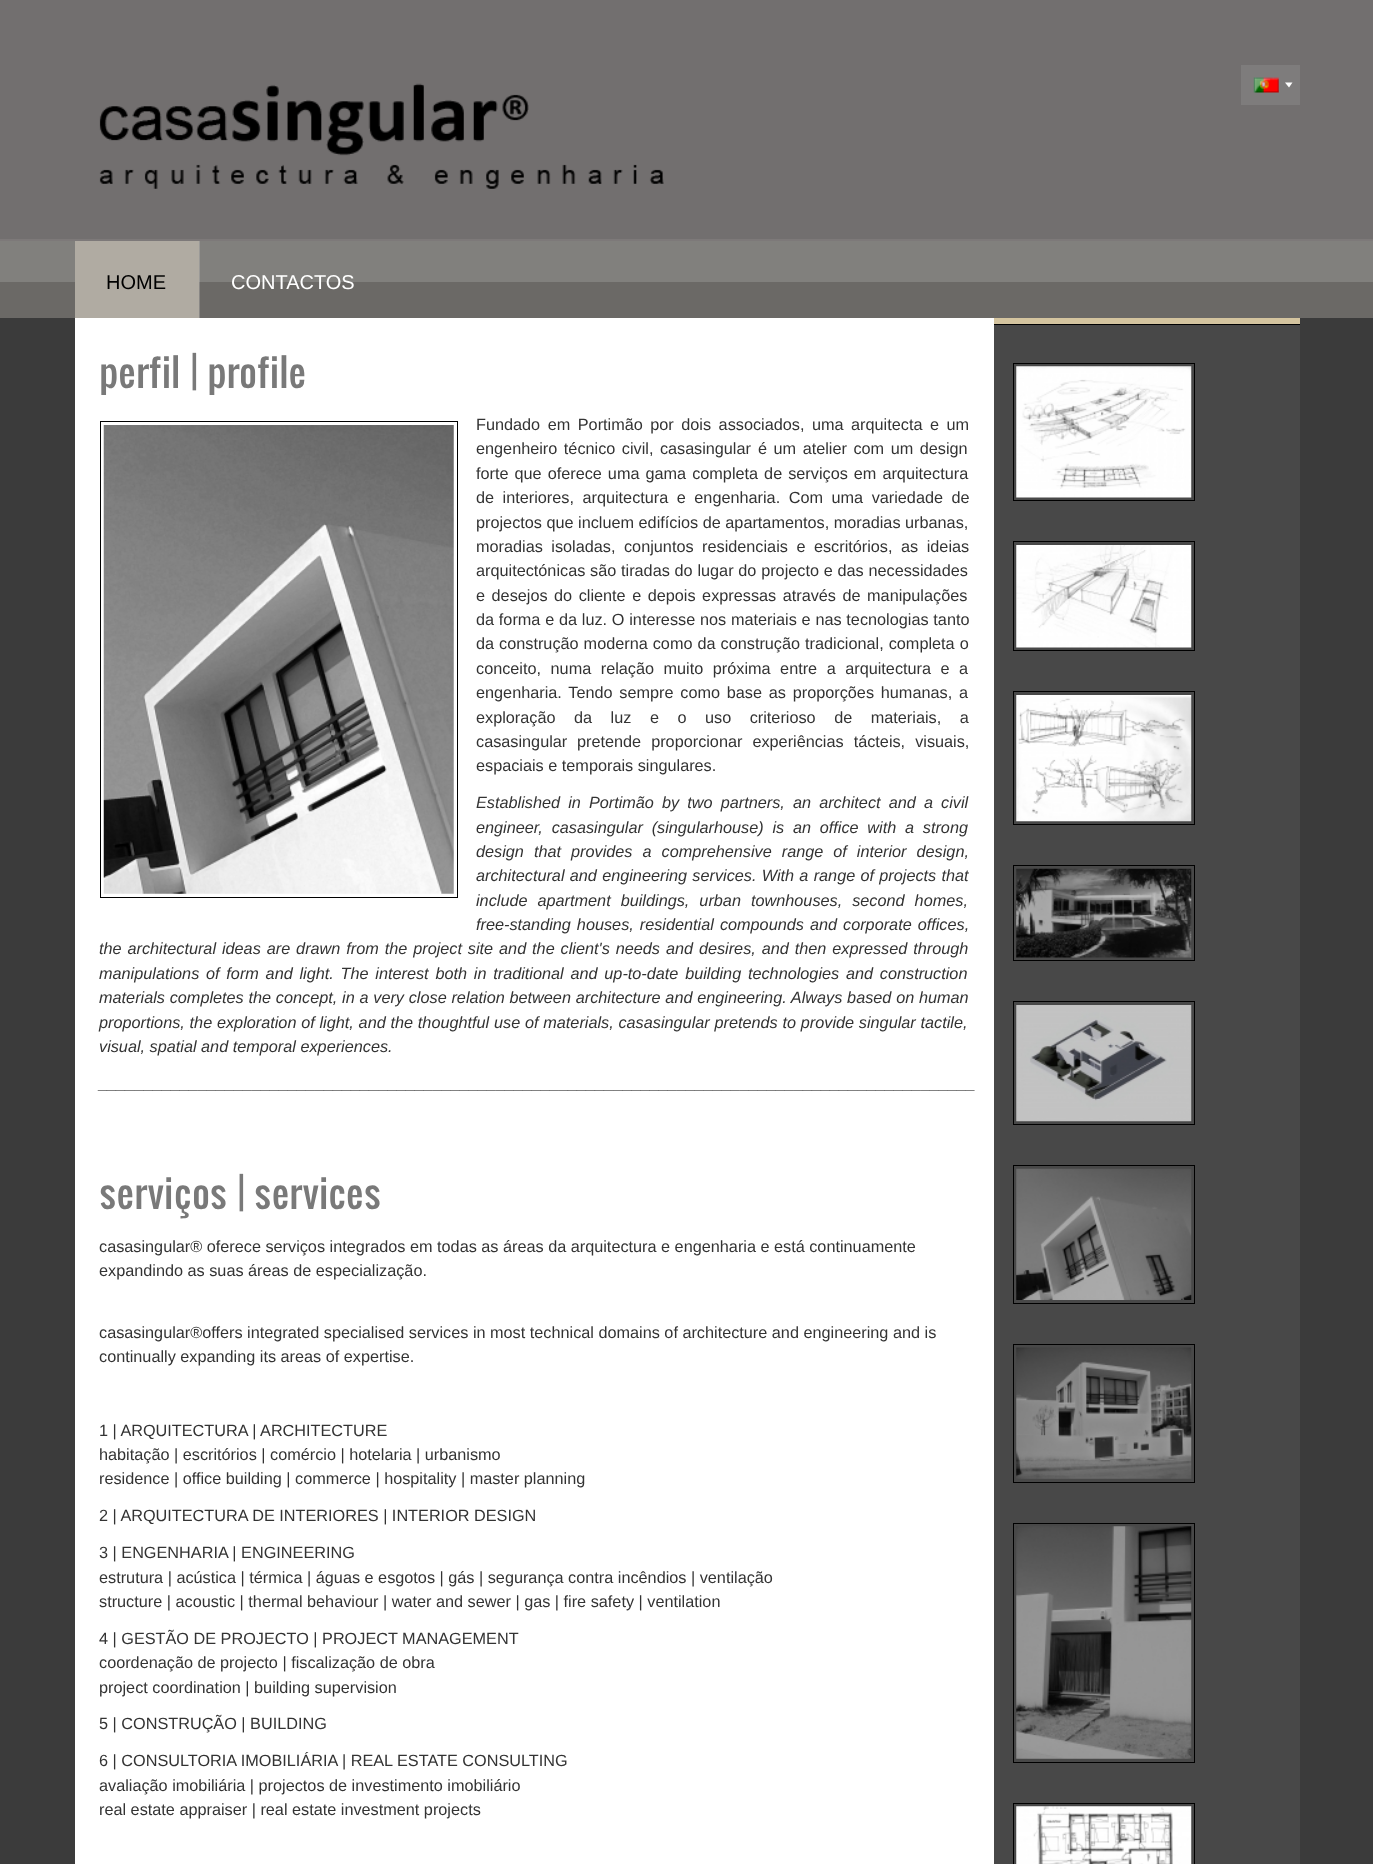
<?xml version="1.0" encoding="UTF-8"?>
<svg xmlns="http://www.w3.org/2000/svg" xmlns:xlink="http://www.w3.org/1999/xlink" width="1373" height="1864">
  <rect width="100%" height="100%" fill="#3b3b3b" />
  <rect width="1373" height="239" fill="#726f6f" />
  <image x="99" y="83" width="565" height="106" xlink:href="image1.png" />
  <rect x="1241" y="65" width="59" height="40" fill="#7e7c7c" />
  <image x="1253" y="77" width="26" height="16" xlink:href="image2.png" />
  <path d="M 1285 82.5 h 7.5 l -3.5 5 z" fill="#ffffff" />
  <rect y="239" width="1373" height="2" fill="#7d7979" />
  <rect y="282" width="1373" height="36" fill="#6b6966" />
  <rect x="199" y="282" width="1" height="36" fill="#898785" />
  <rect y="241" width="1373" height="41" fill="#81807d" />
  <rect x="199" y="241" width="1" height="41" fill="#9a9997" />
  <rect x="75" y="241" width="124" height="77" fill="#b0aba2" />
  <rect x="75" y="318" width="919" height="1546" fill="#ffffff" />
  <rect x="100.5" y="421.5" width="357" height="476" fill="none" stroke="#000000" />
  <image x="103" y="425" width="351" height="469" xlink:href="image3.png" />
  <rect x="994" y="318" width="306" height="6" fill="#d4c49f" />
  <rect x="994" y="324" width="306" height="1" fill="#000000" />
  <rect x="994" y="325" width="306" height="1539" fill="#484848" />
  <rect x="1013.5" y="363.5" width="181" height="137" fill="none" stroke="#000000" />
  <image x="1016" y="366" width="176" height="132" xlink:href="image4.png" />
  <rect x="1013.5" y="541.5" width="181" height="109" fill="none" stroke="#000000" />
  <image x="1016" y="545" width="176" height="103" xlink:href="image5.png" />
  <rect x="1013.5" y="691.5" width="181" height="133" fill="none" stroke="#000000" />
  <image x="1016" y="695" width="176" height="127" xlink:href="image6.png" />
  <rect x="1013.5" y="865.5" width="181" height="95" fill="none" stroke="#000000" />
  <image x="1016" y="868" width="176" height="90" xlink:href="image7.png" />
  <rect x="1013.5" y="1001.5" width="181" height="123" fill="none" stroke="#000000" />
  <image x="1016" y="1005" width="176" height="117" xlink:href="image8.png" />
  <rect x="1013.5" y="1165.5" width="181" height="138" fill="none" stroke="#000000" />
  <image x="1016" y="1168" width="176" height="132" xlink:href="image9.png" />
  <rect x="1013.5" y="1344.5" width="181" height="138" fill="none" stroke="#000000" />
  <image x="1016" y="1347" width="176" height="132" xlink:href="image10.png" />
  <rect x="1013.5" y="1523.5" width="181" height="239" fill="none" stroke="#000000" />
  <image x="1016" y="1526" width="176" height="233" xlink:href="image11.png" />
  <rect x="1013.5" y="1803.5" width="181" height="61" fill="none" stroke="#000000" />
  <image x="1016" y="1806" width="176" height="58" xlink:href="image12.png" />
  <text x="106" y="289" style="font-family: Liberation Sans; font-size: 20px; fill: #000000">HOME</text>
  <text x="231" y="289" style="font-family: Liberation Sans; font-size: 20px; fill: #ffffff">CONTACTOS</text>
  <text x="99" y="388" style="font-family: Oswald; font-size: 37.5px; fill: #797979">perfil | profile</text>
  <text x="476" y="430" word-spacing="3" style="font-family: Liberation Sans; font-size: 16.25px; fill: #333333">Fundado em Portimão por dois associados, uma arquitecta e um</text>
  <text x="476" y="454" word-spacing="2" style="font-family: Liberation Sans; font-size: 16.25px; fill: #333333">engenheiro técnico civil, casa</text>
  <text x="694" y="454" style="font-family: Liberation Sans; font-size: 16.25px; fill: #333333">singular</text>
  <text x="758" y="454" word-spacing="2" style="font-family: Liberation Sans; font-size: 16.25px; fill: #333333">é um atelier com um design</text>
  <text x="476" y="479" word-spacing="1.5" style="font-family: Liberation Sans; font-size: 16.25px; fill: #333333">forte que oferece uma gama completa de serviços em arquitectura</text>
  <text x="476" y="503" word-spacing="4" style="font-family: Liberation Sans; font-size: 16.25px; fill: #333333">de interiores, arquitectura e engenharia. Com uma variedade de</text>
  <text x="476" y="528" style="font-family: Liberation Sans; font-size: 16.25px; fill: #333333">projectos que incluem edifícios de apartamentos, moradias urbanas,</text>
  <text x="476" y="552" word-spacing="4" style="font-family: Liberation Sans; font-size: 16.25px; fill: #333333">moradias isoladas, conjuntos residenciais e escritórios, as ideias</text>
  <text x="476" y="576" word-spacing="0.25" style="font-family: Liberation Sans; font-size: 16.25px; fill: #333333">arquitectónicas são tiradas do lugar do projecto e das necessidades</text>
  <text x="476" y="601" word-spacing="2" style="font-family: Liberation Sans; font-size: 16.25px; fill: #333333">e desejos do cliente e depois expressas através de manipulações</text>
  <text x="476" y="625" word-spacing="0.25" style="font-family: Liberation Sans; font-size: 16.25px; fill: #333333">da forma e da luz. O interesse nos materiais e nas tecnologias tanto</text>
  <text x="476" y="649" word-spacing="0.5" style="font-family: Liberation Sans; font-size: 16.25px; fill: #333333">da construção moderna como da construção tradicional, completa o</text>
  <text x="476" y="674" word-spacing="5" style="font-family: Liberation Sans; font-size: 16.25px; fill: #333333">conceito, numa relação muito próxima entre a arquitectura e a</text>
  <text x="476" y="698" word-spacing="2.25" style="font-family: Liberation Sans; font-size: 16.25px; fill: #333333">engenharia. Tendo sempre como base as proporções humanas, a</text>
  <text x="476" y="723" word-spacing="14" style="font-family: Liberation Sans; font-size: 16.25px; fill: #333333">exploração da luz e o uso criterioso de materiais, a</text>
  <text x="476" y="747" style="font-family: Liberation Sans; font-size: 16.25px; fill: #333333">casasingular</text>
  <text x="577" y="747" word-spacing="5.5" style="font-family: Liberation Sans; font-size: 16.25px; fill: #333333">pretende proporcionar experiências tácteis, visuais,</text>
  <text x="476" y="771" style="font-family: Liberation Sans; font-size: 16.25px; fill: #333333">espaciais e temporais singulares.</text>
  <text x="476" y="808" word-spacing="3.6" style="font-family: Liberation Sans; font-size: 16.25px; font-style: italic; fill: #333333">Established in Portimão by two partners, an architect and a civil</text>
  <text x="476" y="833" word-spacing="4.25" style="font-family: Liberation Sans; font-size: 16.25px; font-style: italic; fill: #333333">engineer, casasingular (singularhouse) is an office with a strong</text>
  <text x="476" y="857" word-spacing="5.5" style="font-family: Liberation Sans; font-size: 16.25px; font-style: italic; fill: #333333">design that provides a comprehensive range of interior design,</text>
  <text x="476" y="881" word-spacing="0.75" style="font-family: Liberation Sans; font-size: 16.25px; font-style: italic; fill: #333333">architectural and engineering services. With a range of projects that</text>
  <text x="476" y="906" word-spacing="5.5" style="font-family: Liberation Sans; font-size: 16.25px; font-style: italic; fill: #333333">include apartment buildings, urban townhouses, second homes,</text>
  <text x="476" y="930" word-spacing="1.5" style="font-family: Liberation Sans; font-size: 16.25px; font-style: italic; fill: #333333">free-standing houses, residential compounds and corporate offices,</text>
  <text x="99" y="954" word-spacing="1.4" style="font-family: Liberation Sans; font-size: 16.25px; font-style: italic; fill: #333333">the architectural ideas are drawn from the project site and the client's needs and desires, and then expressed through</text>
  <text x="99" y="979" word-spacing="2.25" style="font-family: Liberation Sans; font-size: 16.25px; font-style: italic; fill: #333333">manipulations of form and light. The interest both in traditional and up-to-date building technologies and construction</text>
  <text x="99" y="1003" word-spacing="0.25" style="font-family: Liberation Sans; font-size: 16.25px; font-style: italic; fill: #333333">materials completes the concept, in a very close relation between architecture and engineering. Always based on human</text>
  <text x="99" y="1028" word-spacing="0.25" style="font-family: Liberation Sans; font-size: 16.25px; font-style: italic; fill: #333333">proportions, the exploration of light, and the thoughtful use of materials, casasingular pretends to provide singular tactile,</text>
  <text x="99" y="1052" style="font-family: Liberation Sans; font-size: 16.25px; font-style: italic; fill: #333333">visual, spatial and temporal experiences.</text>
  <text x="99" y="1089" style="font-family: Liberation Sans; font-size: 16.25px; font-style: italic; fill: #333333">_________________________________________________________________________________________________</text>
  <text x="99" y="1209" style="font-family: Oswald; font-size: 37.5px; fill: #797979">serviços | services</text>
  <text x="99" y="1252" style="font-family: Liberation Sans; font-size: 16.25px; fill: #333333">casasingular® oferece serviços integrados em todas as áreas da arquitectura e engenharia e está continuamente</text>
  <text x="99" y="1276" style="font-family: Liberation Sans; font-size: 16.25px; fill: #333333">expandindo as suas áreas de especialização.</text>
  <text x="99" y="1338" style="font-family: Liberation Sans; font-size: 16.25px; fill: #333333">casasingular®offers integrated specialised services in most technical domains of architecture and engineering and is</text>
  <text x="99" y="1362" style="font-family: Liberation Sans; font-size: 16.25px; fill: #333333">continually expanding its areas of expertise.</text>
  <text x="99" y="1436" style="font-family: Liberation Sans; font-size: 16.25px; fill: #333333">1 | ARQUITECTURA | ARCHITECTURE</text>
  <text x="99" y="1460" style="font-family: Liberation Sans; font-size: 16.25px; fill: #333333">habitação | escritórios | comércio | hotelaria | urbanismo</text>
  <text x="99" y="1484" style="font-family: Liberation Sans; font-size: 16.25px; fill: #333333">residence | office building | commerce | hospitality | master planning</text>
  <text x="99" y="1521" style="font-family: Liberation Sans; font-size: 16.25px; fill: #333333">2 | ARQUITECTURA DE INTERIORES | INTERIOR DESIGN</text>
  <text x="99" y="1558" style="font-family: Liberation Sans; font-size: 16.25px; fill: #333333">3 | ENGENHARIA | ENGINEERING</text>
  <text x="99" y="1583" style="font-family: Liberation Sans; font-size: 16.25px; fill: #333333">estrutura | acústica | térmica | águas e esgotos | gás | segurança contra incêndios | ventilação</text>
  <text x="99" y="1607" style="font-family: Liberation Sans; font-size: 16.25px; fill: #333333">structure | acoustic | thermal behaviour | water and sewer | gas | fire safety | ventilation</text>
  <text x="99" y="1644" style="font-family: Liberation Sans; font-size: 16.25px; fill: #333333">4 | GESTÃO DE PROJECTO | PROJECT MANAGEMENT</text>
  <text x="99" y="1668" style="font-family: Liberation Sans; font-size: 16.25px; fill: #333333">coordenação de projecto | fiscalização de obra</text>
  <text x="99" y="1693" style="font-family: Liberation Sans; font-size: 16.25px; fill: #333333">project coordination | building supervision</text>
  <text x="99" y="1729" style="font-family: Liberation Sans; font-size: 16.25px; fill: #333333">5 | CONSTRUÇÃO | BUILDING</text>
  <text x="99" y="1766" style="font-family: Liberation Sans; font-size: 16.25px; fill: #333333">6 | CONSULTORIA IMOBILIÁRIA | REAL ESTATE CONSULTING</text>
  <text x="99" y="1791" style="font-family: Liberation Sans; font-size: 16.25px; fill: #333333">avaliação imobiliária | projectos de investimento imobiliário</text>
  <text x="99" y="1815" style="font-family: Liberation Sans; font-size: 16.25px; fill: #333333">real estate appraiser | real estate investment projects</text>
</svg>
